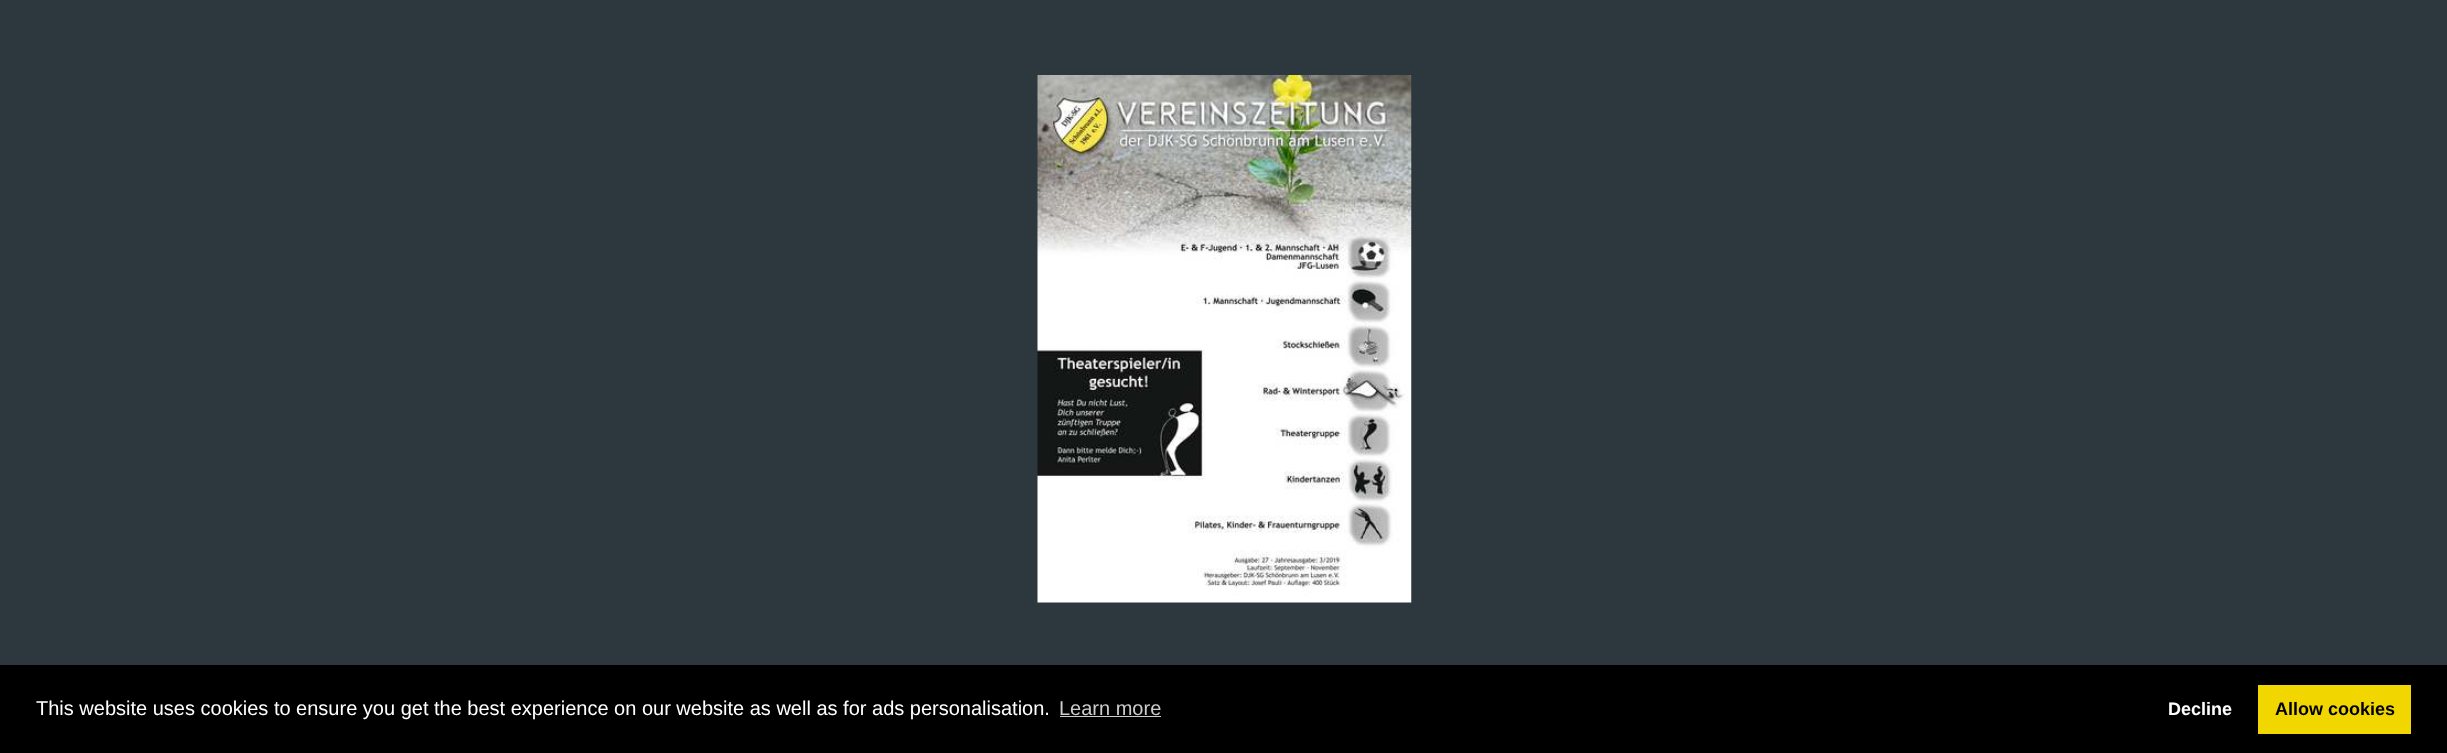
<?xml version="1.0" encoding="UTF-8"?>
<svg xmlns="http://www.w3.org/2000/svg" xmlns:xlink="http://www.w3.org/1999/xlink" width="2447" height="753">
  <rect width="100%" height="100%" fill="#2d373e" />
  <image x="1037" y="75" width="375" height="528" xlink:href="image1.png" />
  <rect y="665" width="2447" height="88" fill="#000000" />
  <rect x="1060" y="716" width="101" height="1" fill="#cccccc" />
  <rect x="2258" y="685" width="153" height="49" fill="#f1d600" />
  <text x="36" y="715" style="font-family: Liberation Sans; font-size: 20px; fill: #ffffff">This website uses cookies to ensure you get the best experience on our website as well as for ads personalisation.</text>
  <text x="1059" y="715" style="font-family: Liberation Sans; font-size: 20px; fill: #cccccc">Learn more</text>
  <text x="2168" y="715" style="font-family: Liberation Sans; font-size: 18px; font-weight: bold; fill: #ffffff">Decline</text>
  <text x="2275" y="715" style="font-family: Liberation Sans; font-size: 18px; font-weight: bold; fill: #000000">Allow cookies</text>
</svg>
